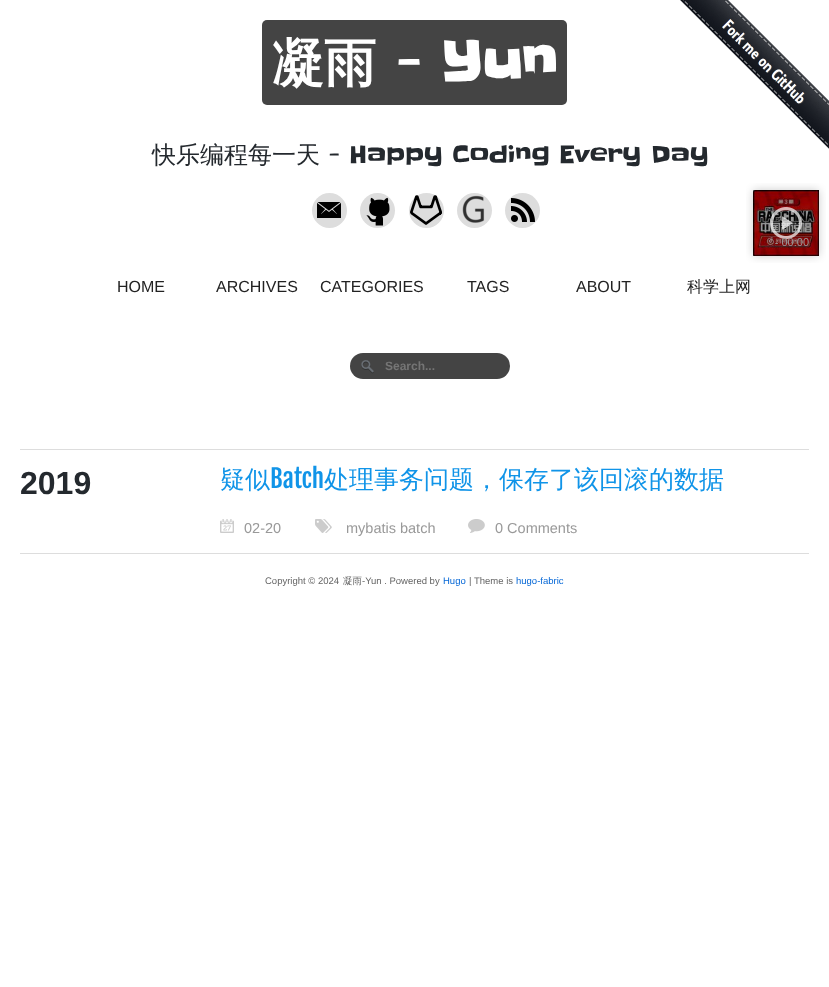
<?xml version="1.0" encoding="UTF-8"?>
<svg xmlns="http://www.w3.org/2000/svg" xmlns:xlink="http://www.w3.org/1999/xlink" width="829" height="987">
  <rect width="100%" height="100%" fill="#ffffff" />
  <rect x="262" y="20" width="305" height="85" rx="5" fill="#444444" />
  <circle cx="329.5" cy="210.5" r="17.5" fill="#dddddd" />
  <image x="317" y="202" width="24" height="16" xlink:href="image1.png" />
  <circle cx="377.5" cy="210.5" r="17.5" fill="#dddddd" />
  <image x="366" y="197" width="24" height="29" xlink:href="image2.png" />
  <circle cx="426.5" cy="210.5" r="17.5" fill="#dddddd" />
  <image x="410" y="195" width="32" height="30" xlink:href="image3.png" />
  <circle cx="474.5" cy="210.5" r="17.5" fill="#dddddd" />
  <image x="462" y="195" width="23" height="28" xlink:href="image4.png" />
  <circle cx="522.5" cy="210.5" r="17.5" fill="#dddddd" />
  <image x="511" y="198" width="24" height="24" xlink:href="image5.png" />
  <rect x="350" y="353" width="160" height="26" rx="13" fill="#444444" />
  <image x="361" y="360" width="13" height="14" xlink:href="image6.png" />
  <rect x="20" y="449" width="789" height="1" fill="#dddddd" />
  <image x="220" y="519" width="14" height="14" xlink:href="image7.png" />
  <image x="315" y="519" width="17" height="14" xlink:href="image8.png" />
  <image x="468" y="519" width="17" height="14" xlink:href="image9.png" />
  <rect x="20" y="553" width="789" height="1" fill="#dddddd" />
  <image x="746" y="183" width="80" height="80" xlink:href="image11.png" />
  <text x="272" y="81" style="font-family: WenQuanYi Zen Hei; font-size: 52px; font-weight: bold; fill: #ffffff">凝雨</text>
  <text x="397" y="81" style="font-family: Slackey; font-size: 52px; font-weight: bold; fill: #ffffff">- Yun</text>
  <text x="152" y="163" style="font-family: WenQuanYi Zen Hei; font-size: 24px; font-weight: 500; fill: #24292e">快乐编程每一天</text>
  <text x="329" y="163" style="font-family: Slackey; font-size: 24px; fill: #24292e">- Happy Coding Every Day</text>
  <text x="117" y="292" style="font-family: Liberation Sans; font-size: 16px; fill: #222222">HOME</text>
  <text x="216" y="292" style="font-family: Liberation Sans; font-size: 16px; fill: #222222">ARCHIVES</text>
  <text x="320" y="292" style="font-family: Liberation Sans; font-size: 16px; fill: #222222">CATEGORIES</text>
  <text x="467" y="292" style="font-family: Liberation Sans; font-size: 16px; fill: #222222">TAGS</text>
  <text x="576" y="292" style="font-family: Liberation Sans; font-size: 16px; fill: #222222">ABOUT</text>
  <text x="687" y="292" style="font-family: WenQuanYi Zen Hei; font-size: 16px; font-weight: 500; fill: #222222">科学上网</text>
  <text x="385" y="370" style="font-family: Liberation Sans; font-size: 12px; font-weight: bold; fill: #757575">Search...</text>
  <text x="20" y="494" style="font-family: Liberation Sans; font-size: 32px; font-weight: bold; fill: #24292e">2019</text>
  <text x="220" y="488" style="font-family: WenQuanYi Zen Hei; font-size: 25px; font-weight: 500; fill: #1094e8">疑似</text>
  <text x="270" y="488" style="font-family: Fjalla One; font-size: 25px; fill: #1094e8">Batch</text>
  <text x="324" y="488" style="font-family: WenQuanYi Zen Hei; font-size: 25px; font-weight: 500; fill: #1094e8">处理事务问题，保存了该回滚的数据</text>
  <text x="244" y="533" style="font-family: Liberation Sans; font-size: 14.5px; fill: #999999">02-20</text>
  <text x="346" y="533" style="font-family: Liberation Sans; font-size: 14.5px; fill: #999999">mybatis batch</text>
  <text x="495" y="533" style="font-family: Liberation Sans; font-size: 14.5px; fill: #999999">0 Comments</text>
  <text x="265" y="584" style="font-family: Liberation Sans; font-size: 9.5px; fill: #666666">Copyright © 2024</text>
  <text x="343" y="584" style="font-family: WenQuanYi Zen Hei; font-size: 9.5px; font-weight: 500; fill: #666666">凝雨</text>
  <text x="362" y="584" style="font-family: Liberation Sans; font-size: 9.5px; fill: #666666">-Yun . Powered by</text>
  <text x="443" y="584" style="font-family: Liberation Sans; font-size: 9.5px; fill: #0366d6">Hugo</text>
  <text x="469" y="584" style="font-family: Liberation Sans; font-size: 9.5px; fill: #666666">| Theme is</text>
  <text x="516" y="584" style="font-family: Liberation Sans; font-size: 9.5px; fill: #0366d6">hugo-fabric</text>
  <image x="680" y="0" width="149" height="149" xlink:href="image10.png" />
</svg>
